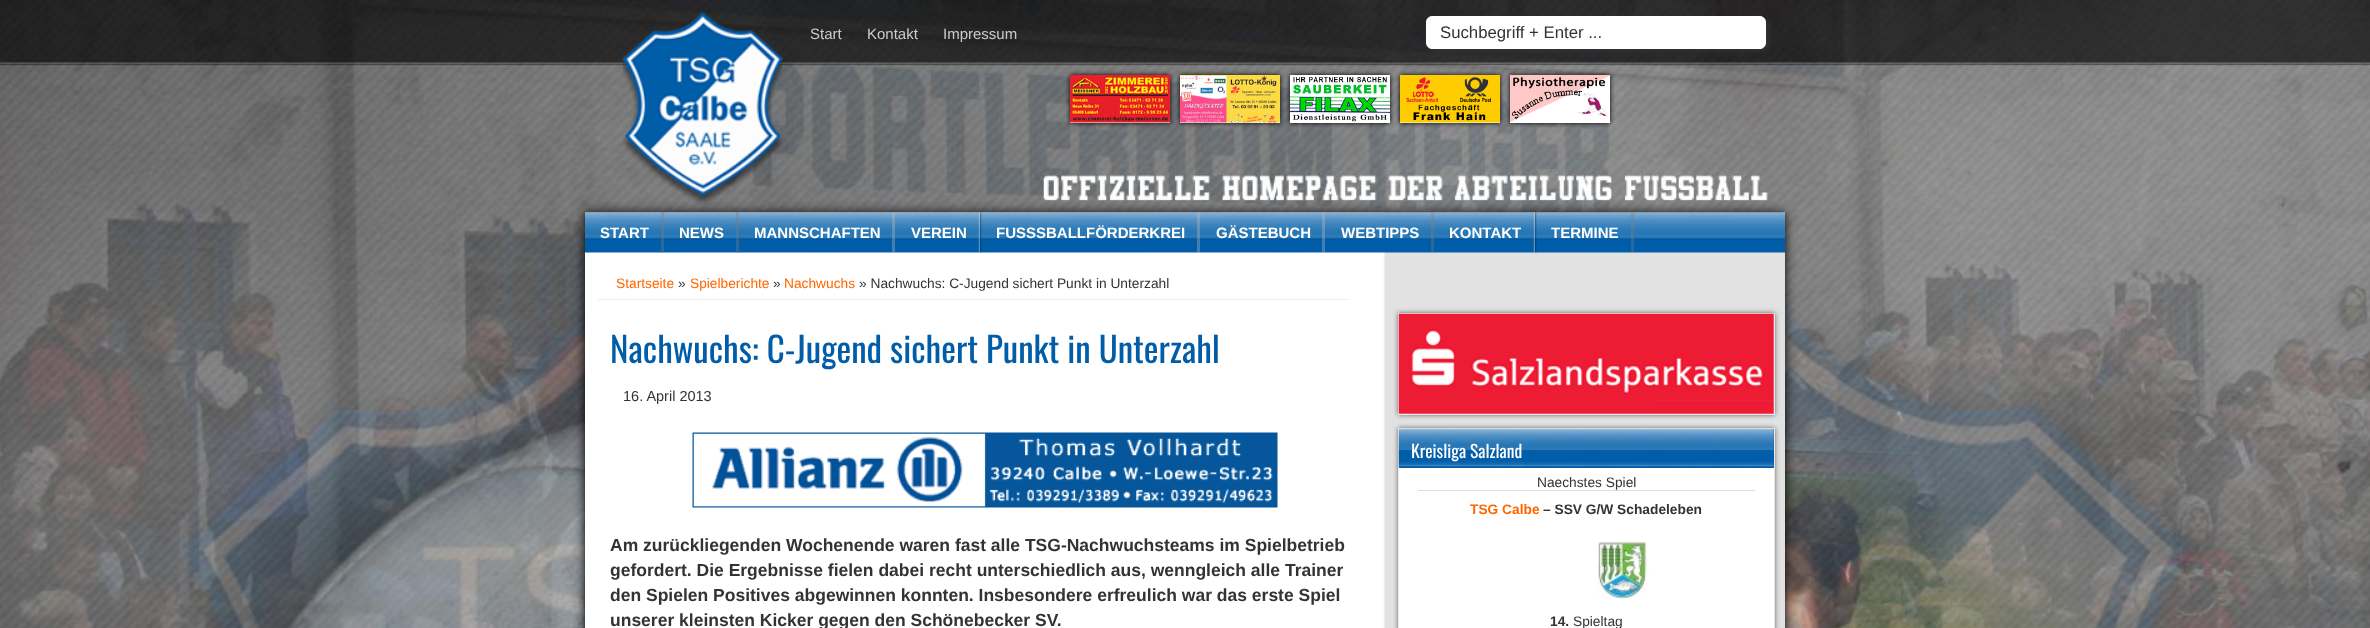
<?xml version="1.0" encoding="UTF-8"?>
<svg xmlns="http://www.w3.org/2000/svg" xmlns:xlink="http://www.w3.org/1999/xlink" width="2370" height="628">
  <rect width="100%" height="100%" fill="#ffffff" />
  <image x="0" y="0" width="2370" height="628" xlink:href="image1.png" />
  <image x="622" y="12" width="161" height="193" xlink:href="image2.png" />
  <rect x="1429" y="19" width="340" height="32" rx="6" fill="#333333" filter="blur(3px)" />
  <rect x="1426.5" y="16.5" width="339" height="32" rx="5.5" fill="#ffffff" stroke="#ffffff" />
  <rect x="1070" y="75" width="100" height="48" fill="#000000" filter="blur(2.5px)" />
  <rect x="1070" y="122" width="100" height="1" fill="#ffffff" />
  <image x="1070" y="75" width="100" height="48" xlink:href="image3.png" />
  <rect x="1180" y="75" width="100" height="48" fill="#000000" filter="blur(2.5px)" />
  <rect x="1180" y="122" width="100" height="1" fill="#ffffff" />
  <image x="1180" y="75" width="100" height="48" xlink:href="image4.png" />
  <rect x="1290" y="75" width="100" height="48" fill="#000000" filter="blur(2.5px)" />
  <rect x="1290" y="75" width="100" height="48" fill="#ffffff" />
  <image x="1290" y="77" width="100" height="45" xlink:href="image5.png" />
  <rect x="1400" y="75" width="100" height="48" fill="#000000" filter="blur(2.5px)" />
  <rect x="1400" y="122" width="100" height="1" fill="#ffffff" />
  <image x="1400" y="75" width="100" height="48" xlink:href="image6.png" />
  <rect x="1510" y="75" width="100" height="48" fill="#000000" filter="blur(2.5px)" />
  <rect x="1510" y="122" width="100" height="1" fill="#ffffff" />
  <image x="1510" y="75" width="100" height="48" xlink:href="image7.png" />
  <rect x="585" y="213" width="1200" height="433" fill="#000000" filter="blur(6px)" />
  <image x="585" y="212" width="1200" height="416" xlink:href="image8.png" />
  <image x="585" y="212" width="1200" height="41" xlink:href="image9.png" />
  <rect x="661" y="212" width="3" height="41" fill="#7e7e7e" fill-opacity="0.35" />
  <rect x="736" y="212" width="3" height="41" fill="#7e7e7e" fill-opacity="0.35" />
  <rect x="892" y="212" width="3" height="41" fill="#bdbdbd" fill-opacity="0.35" />
  <image x="978" y="212" width="4" height="41" xlink:href="image10.png" />
  <rect x="1197" y="212" width="3" height="41" fill="#bdbdbd" fill-opacity="0.35" />
  <rect x="1322" y="212" width="3" height="41" fill="#bdbdbd" fill-opacity="0.35" />
  <rect x="1431" y="212" width="3" height="41" fill="#7e7e7e" fill-opacity="0.35" />
  <image x="1533" y="212" width="4" height="41" xlink:href="image11.png" />
  <rect x="1631" y="212" width="3" height="41" fill="#7e7e7e" fill-opacity="0.35" />
  <rect x="598" y="299" width="750" height="1" fill="#ededed" />
  <image x="692" y="432" width="586" height="76" xlink:href="image12.png" />
  <rect x="1398" y="313" width="377" height="102" fill="#666666" filter="blur(2.5px)" />
  <rect x="1398.5" y="313.5" width="376" height="101" fill="#ffffff" stroke="#eaeaea" />
  <image x="1398" y="313" width="376" height="101" xlink:href="image13.png" />
  <rect x="1398" y="428" width="377" height="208" fill="#666666" filter="blur(2.5px)" />
  <rect x="1399" y="468" width="375" height="160" fill="#ffffff" />
  <rect x="1398.5" y="428.5" width="376" height="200" fill="none" stroke="#eaeaea" />
  <rect x="1399" y="429" width="375" height="39" fill="#015da8" />
  <image x="1398" y="428" width="376" height="40" xlink:href="image14.png" />
  <rect x="1418" y="490" width="337" height="1" fill="#dddddd" />
  <image x="1597" y="541" width="52" height="59" xlink:href="image15.png" />
  <text x="810" y="39" style="font-family: Liberation Sans; font-size: 15px; fill: #cccccc">Start</text>
  <text x="867" y="39" style="font-family: Liberation Sans; font-size: 15px; fill: #cccccc">Kontakt</text>
  <text x="943" y="39" style="font-family: Liberation Sans; font-size: 15px; fill: #cccccc">Impressum</text>
  <text x="1440" y="38" style="font-family: Liberation Sans; font-size: 16.75px; fill: #333333">Suchbegriff + Enter ...</text>
  <text x="600" y="238" style="font-family: Liberation Sans; font-size: 15px; font-weight: bold; fill: #ffffff">START</text>
  <text x="679" y="238" style="font-family: Liberation Sans; font-size: 15px; font-weight: bold; fill: #ffffff">NEWS</text>
  <text x="754" y="238" style="font-family: Liberation Sans; font-size: 15px; font-weight: bold; fill: #ffffff">MANNSCHAFTEN</text>
  <text x="911" y="238" style="font-family: Liberation Sans; font-size: 15px; font-weight: bold; fill: #ffffff">VEREIN</text>
  <text x="996" y="238" style="font-family: Liberation Sans; font-size: 15px; font-weight: bold; fill: #ffffff">FUSSSBALLFÖRDERKREI</text>
  <text x="1216" y="238" style="font-family: Liberation Sans; font-size: 15px; font-weight: bold; fill: #ffffff">GÄSTEBUCH</text>
  <text x="1341" y="238" style="font-family: Liberation Sans; font-size: 15px; font-weight: bold; fill: #ffffff">WEBTIPPS</text>
  <text x="1449" y="238" style="font-family: Liberation Sans; font-size: 15px; font-weight: bold; fill: #ffffff">KONTAKT</text>
  <text x="1551" y="238" style="font-family: Liberation Sans; font-size: 15px; font-weight: bold; fill: #ffffff">TERMINE</text>
  <text x="616" y="288" style="font-family: Liberation Sans; font-size: 13.75px; fill: #ff6600">Startseite</text>
  <text x="678" y="288" style="font-family: Liberation Sans; font-size: 13.75px; fill: #333333">»</text>
  <text x="690" y="288" style="font-family: Liberation Sans; font-size: 13.75px; fill: #ff6600">Spielberichte</text>
  <text x="773" y="288" style="font-family: Liberation Sans; font-size: 13.75px; fill: #333333">»</text>
  <text x="784" y="288" style="font-family: Liberation Sans; font-size: 13.75px; fill: #ff6600">Nachwuchs</text>
  <text x="859" y="288" style="font-family: Liberation Sans; font-size: 13.75px; fill: #333333">» Nachwuchs: C-Jugend sichert Punkt in Unterzahl</text>
  <text x="610" y="363" style="font-family: Oswald; font-size: 35px; fill: #015da8">Nachwuchs: C-Jugend sichert Punkt in Unterzahl</text>
  <text x="623" y="401" style="font-family: Liberation Sans; font-size: 14.5px; fill: #333333">16. April 2013</text>
  <text x="610" y="551" style="font-family: Liberation Sans; font-size: 17.5px; font-weight: bold; fill: #333333">Am zurückliegenden Wochenende waren fast alle TSG-Nachwuchsteams im Spielbetrieb</text>
  <text x="610" y="576" style="font-family: Liberation Sans; font-size: 17.5px; font-weight: bold; fill: #333333">gefordert. Die Ergebnisse fielen dabei recht unterschiedlich aus, wenngleich alle Trainer</text>
  <text x="610" y="601" style="font-family: Liberation Sans; font-size: 17.5px; font-weight: bold; fill: #333333">den Spielen Positives abgewinnen konnten. Insbesondere erfreulich war das erste Spiel</text>
  <text x="610" y="626" style="font-family: Liberation Sans; font-size: 17.5px; font-weight: bold; fill: #333333">unserer kleinsten Kicker gegen den Schönebecker SV.</text>
  <text x="1411" y="458" style="font-family: Oswald; font-size: 17.5px; fill: #ffffff">Kreisliga Salzland</text>
  <text x="1537" y="487" style="font-family: Liberation Sans; font-size: 13.75px; fill: #333333">Naechstes Spiel</text>
  <text x="1470" y="514" style="font-family: Liberation Sans; font-size: 13.75px; font-weight: bold; fill: #ff6600">TSG Calbe</text>
  <text x="1543" y="514" style="font-family: Liberation Sans; font-size: 13.75px; font-weight: bold; fill: #333333">– SSV G/W Schadeleben</text>
  <text x="1550" y="626" style="font-family: Liberation Sans; font-size: 13.75px; font-weight: bold; fill: #333333">14.</text>
  <text x="1573" y="626" style="font-family: Liberation Sans; font-size: 13.75px; fill: #333333">Spieltag</text>
</svg>
